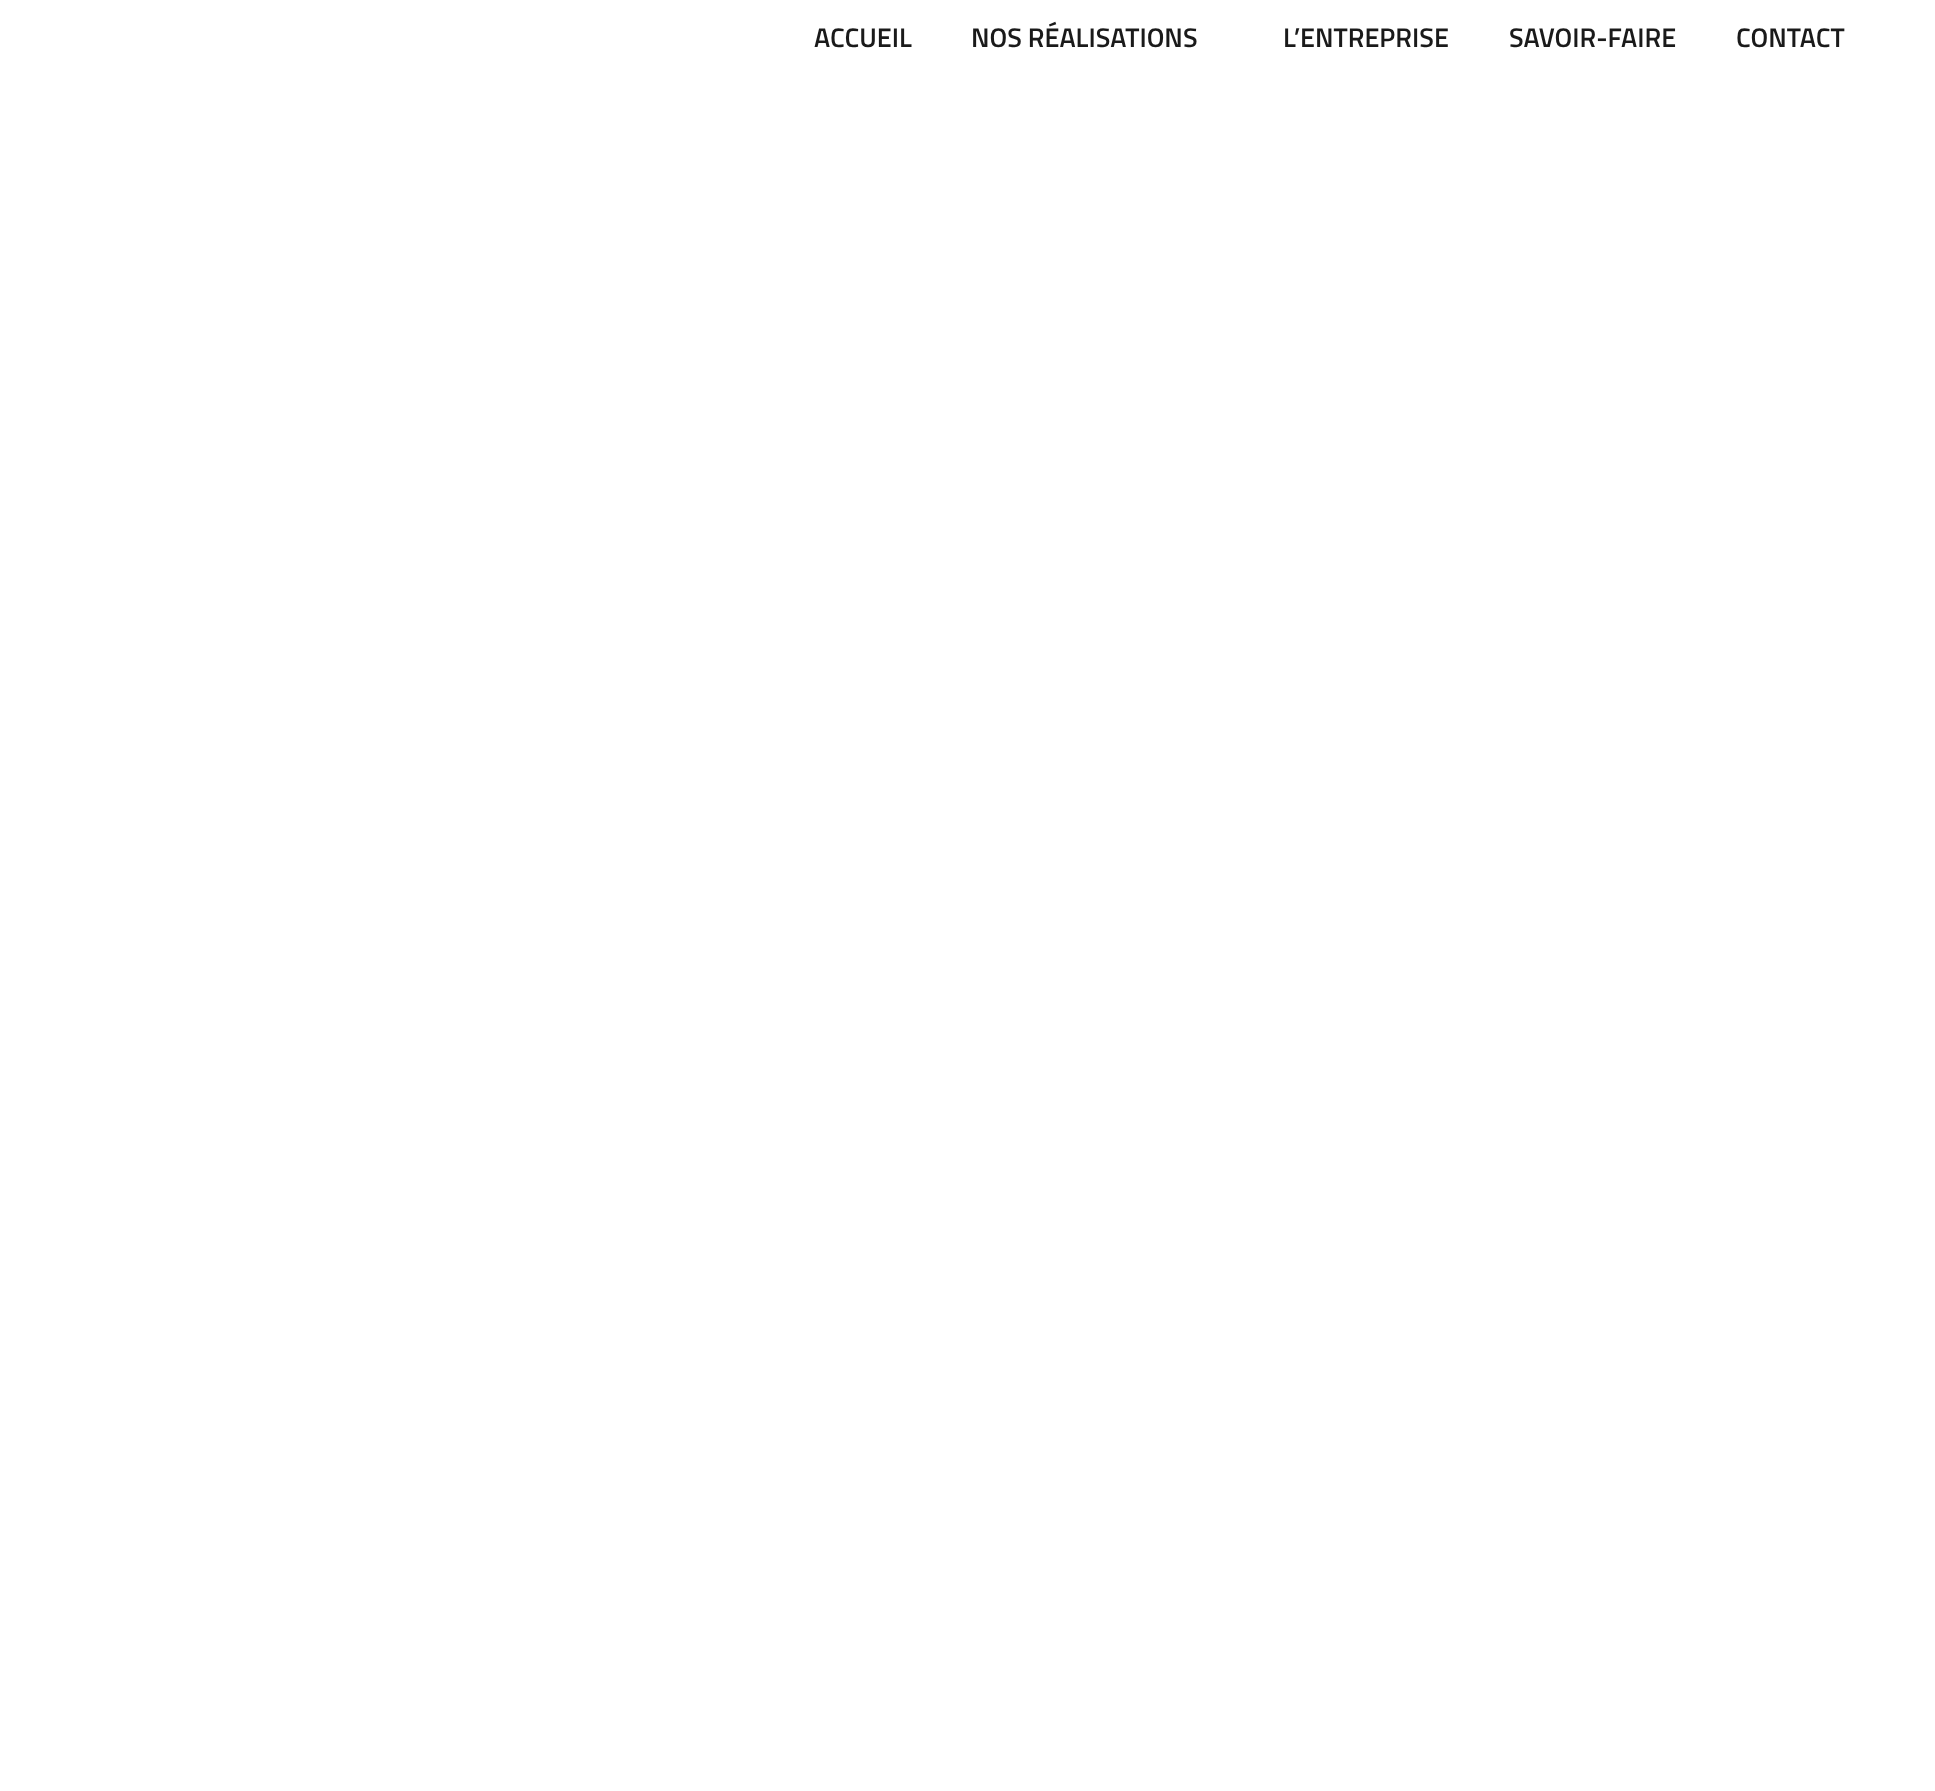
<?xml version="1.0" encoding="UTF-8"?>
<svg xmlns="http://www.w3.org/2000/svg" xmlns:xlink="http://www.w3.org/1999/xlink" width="1935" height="1791">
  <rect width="100%" height="100%" fill="#ffffff" />
  <text x="814" y="47" style="font-family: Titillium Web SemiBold; font-size: 27px; font-weight: 600; fill: #1a1a1a">ACCUEIL</text>
  <text x="971" y="47" style="font-family: Titillium Web SemiBold; font-size: 27px; font-weight: 600; fill: #1a1a1a">NOS RÉALISATIONS</text>
  <text x="1283" y="47" style="font-family: Titillium Web SemiBold; font-size: 27px; font-weight: 600; fill: #1a1a1a">L’ENTREPRISE</text>
  <text x="1509" y="47" style="font-family: Titillium Web SemiBold; font-size: 27px; font-weight: 600; fill: #1a1a1a">SAVOIR-FAIRE</text>
  <text x="1736" y="47" style="font-family: Titillium Web SemiBold; font-size: 27px; font-weight: 600; fill: #1a1a1a">CONTACT</text>
</svg>
